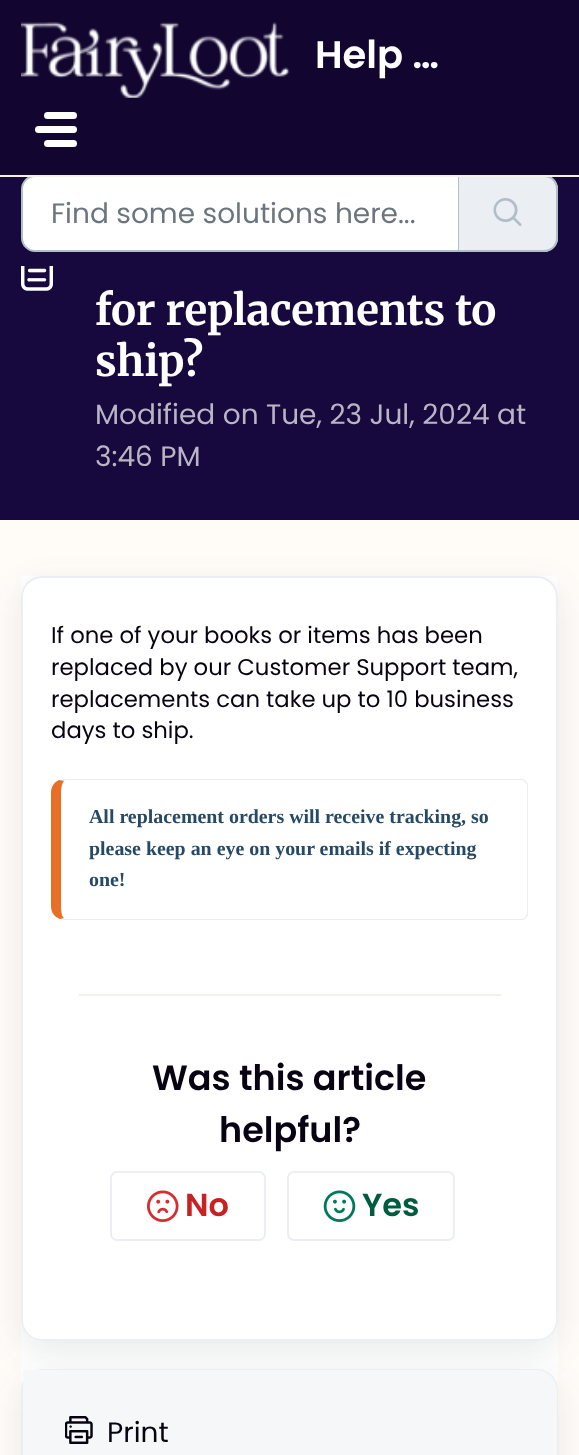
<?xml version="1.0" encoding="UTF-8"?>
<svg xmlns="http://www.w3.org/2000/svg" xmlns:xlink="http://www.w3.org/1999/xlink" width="579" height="1455">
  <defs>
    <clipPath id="clip1"><path d="M 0 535 h 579 v 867 h -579 z m 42 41 h 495 c 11.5 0 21 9.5 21 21 v 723 c 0 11.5 -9.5 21 -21 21 h -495 c -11.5 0 -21 -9.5 -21 -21 v -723 c 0 -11.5 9.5 -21 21 -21 z" clip-rule="evenodd" /></clipPath>
  </defs>
  <rect width="100%" height="100%" fill="#fffcf8" />
  <rect width="579" height="175" fill="#120631" />
  <rect y="177" width="579" height="343" fill="#17093d" />
  <path d="M 35 176 h 424 v 75 h -424 c -7 0 -13 -6 -13 -13 v -49 c 0 -7 6 -13 13 -13 z" fill="#ffffff" stroke="#b1bdc8" stroke-width="2" />
  <path d="M 459 175 h 85 c 7.5 0 14 6.5 14 14 v 49 c 0 7.5 -6.5 14 -14 14 h -85 z" fill="#ebeff3" />
  <path d="M 458 175 h 86 c 8 0 14 6 14 14 v 49 c 0 8 -6 14 -14 14 h -86 z m 0 2 h 86 c 7 0 12 5 12 12 v 49 c 0 7 -5 12 -12 12 h -86 z" fill="#b1bdc8" fill-rule="evenodd" />
  <rect y="175" width="579" height="2" fill="#f6f0e7" />
  <image x="21" y="22" width="269" height="76" xlink:href="image1.png" />
  <rect x="44" y="112" width="33" height="7" rx="3.5" fill="#ffffff" />
  <rect x="35" y="126" width="42" height="7" rx="3.5" fill="#ffffff" />
  <rect x="44" y="140" width="33" height="7" rx="3.5" fill="#ffffff" />
  <image x="493" y="198" width="29" height="28" xlink:href="image2.png" />
  <image x="21" y="266" width="32" height="25" xlink:href="image3.png" />
  <rect x="21" y="576" width="537" height="814" fill="#ffffff" />
  <g clip-path="url(#clip1)">
    <rect x="21" y="586" width="537" height="765" rx="21" fill="#27313a" fill-opacity="0.1" filter="blur(16.5px)" />
  </g>
  <rect x="22" y="577" width="535" height="763" rx="20" fill="none" stroke="#ebeff3" stroke-width="2" />
  <path d="M 65 779 l -6 1 l 5 1 l 1 -1 h 457 c 1 0 2 1 3 2 l 1 -1 c -1 -1 -2 -2 -4 -2 z" fill="#ebedf0" />
  <path d="M 526 781 c 1 1 2 3 2 4 v 130 l -2 3 l -1 -1 l 2 -3 v -129 l -2 -3 z" fill="#ebedf0" />
  <path d="M 526 918 c -1 1 -2 2 -4 2 h -457 l -5 -1 l 4 -1 l 1 1 h 457 c 1 0 2 -1 3 -2 z" fill="#ebedf0" />
  <path d="M 59 780 c -5 2 -8 7 -8 13 v 113 c 0 6 3 11 9 13 l 4 -1 c -2 -1 -3 -6 -3 -12 v -113 c 0 -5 1 -10 3 -12 z" fill="#e86f25" />
  <rect x="79" y="994" width="422" height="2" fill="#f6f0e7" />
  <rect x="111" y="1172" width="154" height="68" rx="6" fill="none" stroke="#ebeff3" stroke-width="2" />
  <image x="147" y="1190" width="32" height="32" xlink:href="image4.png" />
  <rect x="288" y="1172" width="166" height="68" rx="6" fill="none" stroke="#ebeff3" stroke-width="2" />
  <image x="323" y="1190" width="33" height="32" xlink:href="image5.png" />
  <rect x="21" y="1379" width="537" height="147" rx="21" fill="#27313a" fill-opacity="0.1" filter="blur(16.5px)" />
  <rect x="22" y="1370" width="535" height="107" rx="20" fill="none" stroke="#ebeff3" stroke-width="2" />
  <path d="M 23 1370 h 513 c 11.5 0 21 9.5 21 21 v 64 c 0 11.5 -9.5 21 -21 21 h -513 z" fill="#f5f7f9" />
  <image x="65" y="1416" width="28" height="28" xlink:href="image6.png" />
  <text x="315" y="68" style="font-family: Poppins; font-size: 38.5px; font-weight: 600; fill: #ffffff">Help …</text>
  <text x="51" y="223" style="font-family: Poppins; font-size: 28px; fill: #6c757d">Find some solutions here...</text>
  <text x="95" y="325" style="font-family: Merriweather; font-size: 42px; font-weight: bold; fill: #ffffff">for replacements to</text>
  <text x="95" y="376" style="font-family: Merriweather; font-size: 42px; font-weight: bold; fill: #ffffff">ship?</text>
  <text x="95" y="424" style="font-family: Poppins; font-size: 28px; fill: #b9b5c5">Modified on Tue, 23 Jul, 2024 at</text>
  <text x="95" y="466" style="font-family: Poppins; font-size: 28px; fill: #b9b5c5">3:46 PM</text>
  <text x="51" y="643" style="font-family: Poppins; font-size: 22.75px; fill: #070311">If one of your books or items has been</text>
  <text x="51" y="675" style="font-family: Poppins; font-size: 22.75px; fill: #070311">replaced by our Customer Support team,</text>
  <text x="51" y="707" style="font-family: Poppins; font-size: 22.75px; fill: #070311">replacements can take up to 10 business</text>
  <text x="51" y="738" style="font-family: Poppins; font-size: 22.75px; fill: #070311">days to ship.</text>
  <text x="89" y="823" style="font-family: Liberation Serif; font-size: 19.9px; font-weight: bold; fill: #264966">All replacement orders will receive tracking, so</text>
  <text x="89" y="855" style="font-family: Liberation Serif; font-size: 19.9px; font-weight: bold; fill: #264966">please keep an eye on your emails if expecting</text>
  <text x="89" y="886" style="font-family: Liberation Serif; font-size: 19.9px; font-weight: bold; fill: #264966">one!</text>
  <text x="152" y="1090" style="font-family: Poppins; font-size: 35px; font-weight: 600; fill: #070311">Was this article</text>
  <text x="219" y="1142" style="font-family: Poppins; font-size: 35px; font-weight: 600; fill: #070311">helpful?</text>
  <text x="185" y="1216" style="font-family: Poppins; font-size: 32px; font-weight: 600; fill: #c82124">No</text>
  <text x="362" y="1216" style="font-family: Poppins; font-size: 32px; font-weight: 600; fill: #005c3f">Yes</text>
  <text x="107" y="1442" style="font-family: Poppins; font-size: 28px; fill: #070311">Print</text>
</svg>
